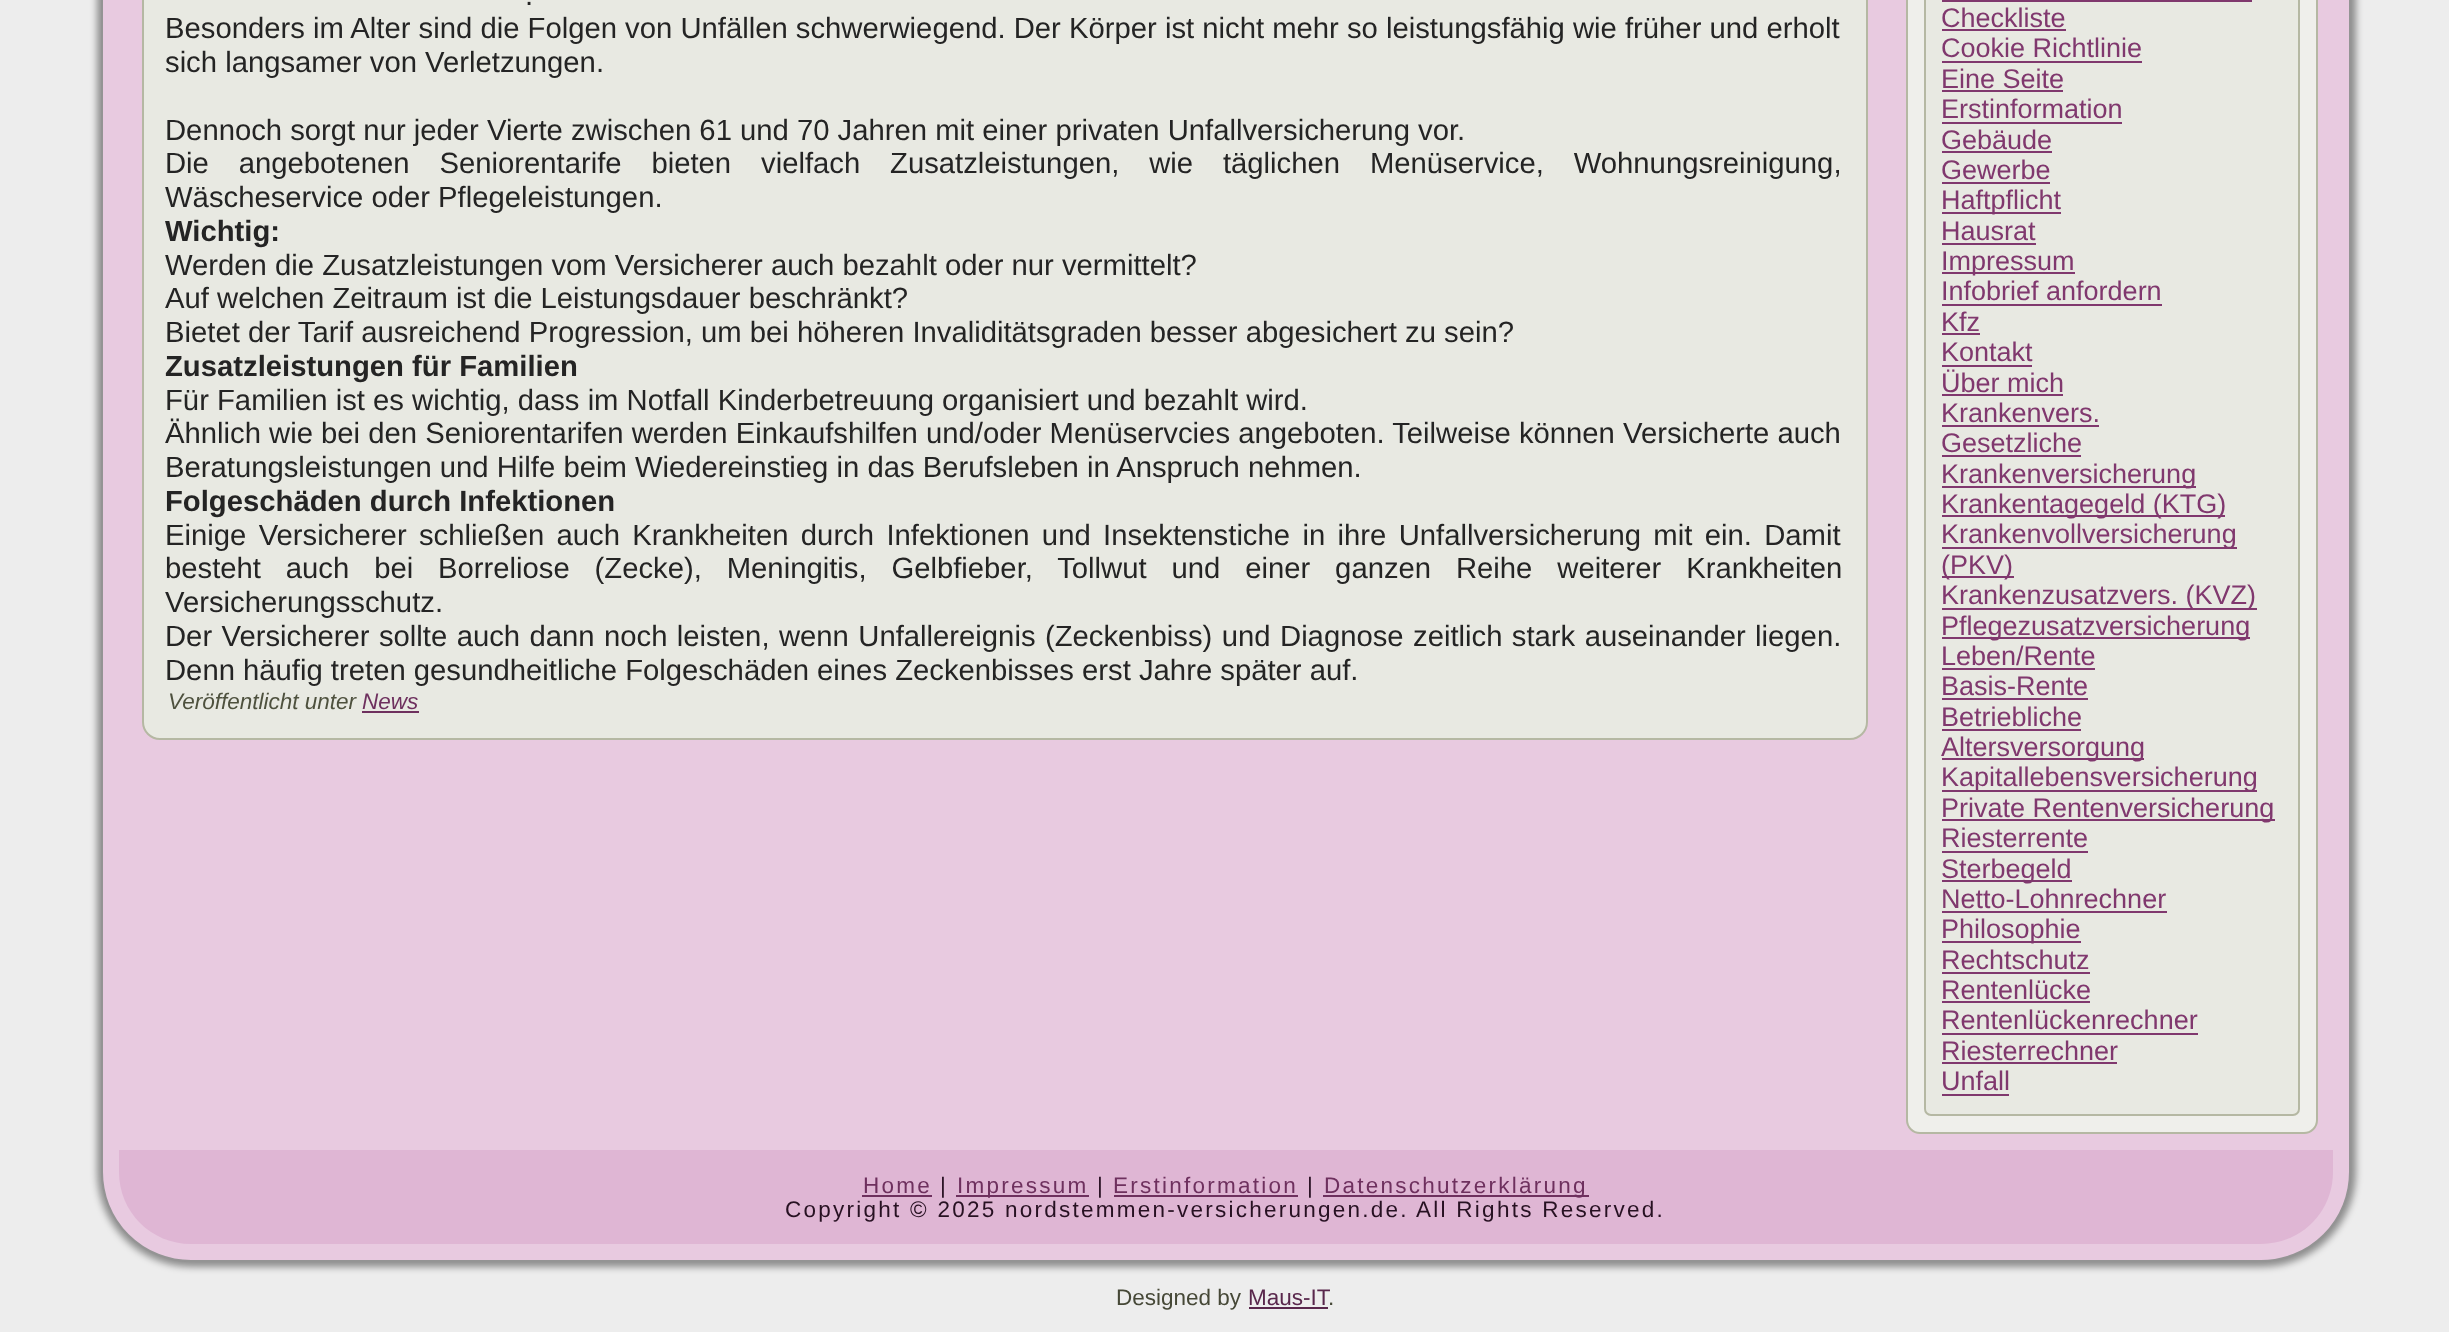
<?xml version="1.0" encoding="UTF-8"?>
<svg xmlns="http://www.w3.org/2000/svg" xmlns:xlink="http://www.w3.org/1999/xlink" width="2449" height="1332">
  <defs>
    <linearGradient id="g1" gradientUnits="userSpaceOnUse" x1="1225" y1="-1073" x2="1225" y2="1332"><stop offset="0" stop-color="#969696" /><stop offset="0.09" stop-color="#ededed" /></linearGradient>
  </defs>
  <rect width="100%" height="100%" fill="#ffffff" />
  <rect width="2449" height="1332" fill="url(#g1)" />
  <rect x="97" y="-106" width="2259" height="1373" rx="95" fill="#000000" fill-opacity="0.4" filter="blur(3.5px)" />
  <rect x="102" y="-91" width="2248" height="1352" rx="89" fill="#e8cae0" stroke="#949494" stroke-width="2" />
  <rect x="143" y="-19" width="1724" height="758" rx="17" fill="#e8e9e2" stroke="#b5b8a3" stroke-width="2" />
  <rect x="362" y="711" width="57" height="2" fill="#6e305e" />
  <rect x="1907" y="-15" width="410" height="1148" rx="13" fill="#efefeb" stroke="#b5b8a3" stroke-width="2" />
  <rect x="1925" y="-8" width="374" height="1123" rx="6" fill="#e8e9e2" stroke="#b5b8a3" stroke-width="2" />
  <rect x="1942" width="310" height="2" fill="#80386e" />
  <rect x="1942" y="29" width="124" height="2" fill="#80386e" />
  <rect x="1942" y="61" width="200" height="2" fill="#80386e" />
  <rect x="1942" y="90" width="121" height="2" fill="#80386e" />
  <rect x="1942" y="122" width="180" height="2" fill="#80386e" />
  <rect x="1942" y="151" width="110" height="2" fill="#80386e" />
  <rect x="1942" y="182" width="108" height="2" fill="#80386e" />
  <rect x="1942" y="212" width="119" height="2" fill="#80386e" />
  <rect x="1942" y="243" width="94" height="2" fill="#80386e" />
  <rect x="1942" y="272" width="133" height="2" fill="#80386e" />
  <rect x="1942" y="304" width="220" height="2" fill="#80386e" />
  <rect x="1942" y="333" width="38" height="2" fill="#80386e" />
  <rect x="1942" y="365" width="90" height="2" fill="#80386e" />
  <rect x="1942" y="394" width="121" height="2" fill="#80386e" />
  <rect x="1942" y="425" width="157" height="2" fill="#80386e" />
  <rect x="1942" y="455" width="139" height="2" fill="#80386e" />
  <rect x="1942" y="486" width="254" height="2" fill="#80386e" />
  <rect x="1942" y="515" width="283" height="2" fill="#80386e" />
  <rect x="1942" y="547" width="295" height="2" fill="#80386e" />
  <rect x="1942" y="576" width="72" height="2" fill="#80386e" />
  <rect x="1942" y="608" width="315" height="2" fill="#80386e" />
  <rect x="1942" y="637" width="308" height="2" fill="#80386e" />
  <rect x="1942" y="668" width="153" height="2" fill="#80386e" />
  <rect x="1942" y="698" width="146" height="2" fill="#80386e" />
  <rect x="1942" y="729" width="139" height="2" fill="#80386e" />
  <rect x="1942" y="758" width="202" height="2" fill="#80386e" />
  <rect x="1942" y="790" width="315" height="2" fill="#80386e" />
  <rect x="1942" y="819" width="333" height="2" fill="#80386e" />
  <rect x="1942" y="851" width="146" height="2" fill="#80386e" />
  <rect x="1942" y="880" width="130" height="2" fill="#80386e" />
  <rect x="1942" y="911" width="225" height="2" fill="#80386e" />
  <rect x="1942" y="941" width="139" height="2" fill="#80386e" />
  <rect x="1942" y="972" width="148" height="2" fill="#80386e" />
  <rect x="1942" y="1001" width="148" height="2" fill="#80386e" />
  <rect x="1942" y="1033" width="256" height="2" fill="#80386e" />
  <rect x="1942" y="1062" width="175" height="2" fill="#80386e" />
  <rect x="1942" y="1094" width="67" height="2" fill="#80386e" />
  <path d="M 119 1150 h 2214 v 22 c 0 40 -32 72 -72 72 h -2070 c -40 0 -72 -32 -72 -72 z" fill="#dfb6d4" />
  <rect x="862" y="1195" width="70" height="2" fill="#6e305e" />
  <rect x="956" y="1195" width="133" height="2" fill="#6e305e" />
  <rect x="1114" y="1195" width="184" height="2" fill="#6e305e" />
  <rect x="1323" y="1195" width="266" height="2" fill="#6e305e" />
  <rect x="1249" y="1307" width="79" height="2" fill="#59274c" />
  <text x="525" y="5" style="font-family: Liberation Sans; font-size: 29.25px; fill: #242424">.</text>
  <text x="165" y="38" style="font-family: Liberation Sans; font-size: 29.25px; fill: #242424">Besonders im Alter sind die Folgen von Unfällen schwerwiegend. Der Körper ist nicht mehr so leistungsfähig wie früher und erholt</text>
  <text x="165" y="72" style="font-family: Liberation Sans; font-size: 29.25px; fill: #242424">sich langsamer von Verletzungen.</text>
  <text x="165" y="140" style="font-family: Liberation Sans; font-size: 29.25px; fill: #242424">Dennoch sorgt nur jeder Vierte zwischen 61 und 70 Jahren mit einer privaten Unfallversicherung vor.</text>
  <text x="165" y="173" word-spacing="21.75" style="font-family: Liberation Sans; font-size: 29.25px; fill: #242424">Die angebotenen Seniorentarife bieten vielfach Zusatzleistungen, wie täglichen Menüservice, Wohnungsreinigung,</text>
  <text x="165" y="207" style="font-family: Liberation Sans; font-size: 29.25px; fill: #242424">Wäscheservice oder Pflegeleistungen.</text>
  <text x="165" y="241" style="font-family: Liberation Sans; font-size: 29.25px; font-weight: bold; fill: #242424">Wichtig:</text>
  <text x="165" y="275" style="font-family: Liberation Sans; font-size: 29.25px; fill: #242424">Werden die Zusatzleistungen vom Versicherer auch bezahlt oder nur vermittelt?</text>
  <text x="165" y="308" style="font-family: Liberation Sans; font-size: 29.25px; fill: #242424">Auf welchen Zeitraum ist die Leistungsdauer beschränkt?</text>
  <text x="165" y="342" style="font-family: Liberation Sans; font-size: 29.25px; fill: #242424">Bietet der Tarif ausreichend Progression, um bei höheren Invaliditätsgraden besser abgesichert zu sein?</text>
  <text x="165" y="376" style="font-family: Liberation Sans; font-size: 29.25px; font-weight: bold; fill: #242424">Zusatzleistungen für Familien</text>
  <text x="165" y="410" style="font-family: Liberation Sans; font-size: 29.25px; fill: #242424">Für Familien ist es wichtig, dass im Notfall Kinderbetreuung organisiert und bezahlt wird.</text>
  <text x="165" y="443" style="font-family: Liberation Sans; font-size: 29.25px; fill: #242424">Ähnlich wie bei den Seniorentarifen werden Einkaufshilfen und/oder Menüservcies angeboten. Teilweise können Versicherte auch</text>
  <text x="165" y="477" style="font-family: Liberation Sans; font-size: 29.25px; fill: #242424">Beratungsleistungen und Hilfe beim Wiedereinstieg in das Berufsleben in Anspruch nehmen.</text>
  <text x="165" y="511" style="font-family: Liberation Sans; font-size: 29.25px; font-weight: bold; fill: #242424">Folgeschäden durch Infektionen</text>
  <text x="165" y="545" word-spacing="4.25" style="font-family: Liberation Sans; font-size: 29.25px; fill: #242424">Einige Versicherer schließen auch Krankheiten durch Infektionen und Insektenstiche in ihre Unfallversicherung mit ein. Damit</text>
  <text x="165" y="578" word-spacing="16.75" style="font-family: Liberation Sans; font-size: 29.25px; fill: #242424">besteht auch bei Borreliose (Zecke), Meningitis, Gelbfieber, Tollwut und einer ganzen Reihe weiterer Krankheiten</text>
  <text x="165" y="612" style="font-family: Liberation Sans; font-size: 29.25px; fill: #242424">Versicherungsschutz.</text>
  <text x="165" y="646" word-spacing="1.3" style="font-family: Liberation Sans; font-size: 29.25px; fill: #242424">Der Versicherer sollte auch dann noch leisten, wenn Unfallereignis (Zeckenbiss) und Diagnose zeitlich stark auseinander liegen.</text>
  <text x="165" y="680" style="font-family: Liberation Sans; font-size: 29.25px; fill: #242424">Denn häufig treten gesundheitliche Folgeschäden eines Zeckenbisses erst Jahre später auf.</text>
  <text x="168" y="709" style="font-family: Liberation Sans; font-size: 22.5px; font-style: italic; fill: #4e513e">Veröffentlicht unter</text>
  <text x="362" y="709" style="font-family: Liberation Sans; font-size: 22.5px; font-style: italic; fill: #6e305e">News</text>
  <text x="1941" y="27" style="font-family: Liberation Sans; font-size: 27px; fill: #80386e">Checkliste</text>
  <text x="1941" y="57" style="font-family: Liberation Sans; font-size: 27px; fill: #80386e">Cookie Richtlinie</text>
  <text x="1941" y="88" style="font-family: Liberation Sans; font-size: 27px; fill: #80386e">Eine Seite</text>
  <text x="1941" y="118" style="font-family: Liberation Sans; font-size: 27px; fill: #80386e">Erstinformation</text>
  <text x="1941" y="149" style="font-family: Liberation Sans; font-size: 27px; fill: #80386e">Gebäude</text>
  <text x="1941" y="179" style="font-family: Liberation Sans; font-size: 27px; fill: #80386e">Gewerbe</text>
  <text x="1941" y="209" style="font-family: Liberation Sans; font-size: 27px; fill: #80386e">Haftpflicht</text>
  <text x="1941" y="240" style="font-family: Liberation Sans; font-size: 27px; fill: #80386e">Hausrat</text>
  <text x="1941" y="270" style="font-family: Liberation Sans; font-size: 27px; fill: #80386e">Impressum</text>
  <text x="1941" y="300" style="font-family: Liberation Sans; font-size: 27px; fill: #80386e">Infobrief anfordern</text>
  <text x="1941" y="331" style="font-family: Liberation Sans; font-size: 27px; fill: #80386e">Kfz</text>
  <text x="1941" y="361" style="font-family: Liberation Sans; font-size: 27px; fill: #80386e">Kontakt</text>
  <text x="1941" y="392" style="font-family: Liberation Sans; font-size: 27px; fill: #80386e">Über mich</text>
  <text x="1941" y="422" style="font-family: Liberation Sans; font-size: 27px; fill: #80386e">Krankenvers.</text>
  <text x="1941" y="452" style="font-family: Liberation Sans; font-size: 27px; fill: #80386e">Gesetzliche</text>
  <text x="1941" y="483" style="font-family: Liberation Sans; font-size: 27px; fill: #80386e">Krankenversicherung</text>
  <text x="1941" y="513" style="font-family: Liberation Sans; font-size: 27px; fill: #80386e">Krankentagegeld (KTG)</text>
  <text x="1941" y="543" style="font-family: Liberation Sans; font-size: 27px; fill: #80386e">Krankenvollversicherung</text>
  <text x="1941" y="574" style="font-family: Liberation Sans; font-size: 27px; fill: #80386e">(PKV)</text>
  <text x="1941" y="604" style="font-family: Liberation Sans; font-size: 27px; fill: #80386e">Krankenzusatzvers. (KVZ)</text>
  <text x="1941" y="635" style="font-family: Liberation Sans; font-size: 27px; fill: #80386e">Pflegezusatzversicherung</text>
  <text x="1941" y="665" style="font-family: Liberation Sans; font-size: 27px; fill: #80386e">Leben/Rente</text>
  <text x="1941" y="695" style="font-family: Liberation Sans; font-size: 27px; fill: #80386e">Basis-Rente</text>
  <text x="1941" y="726" style="font-family: Liberation Sans; font-size: 27px; fill: #80386e">Betriebliche</text>
  <text x="1941" y="756" style="font-family: Liberation Sans; font-size: 27px; fill: #80386e">Altersversorgung</text>
  <text x="1941" y="786" style="font-family: Liberation Sans; font-size: 27px; fill: #80386e">Kapitallebensversicherung</text>
  <text x="1941" y="817" style="font-family: Liberation Sans; font-size: 27px; fill: #80386e">Private Rentenversicherung</text>
  <text x="1941" y="847" style="font-family: Liberation Sans; font-size: 27px; fill: #80386e">Riesterrente</text>
  <text x="1941" y="878" style="font-family: Liberation Sans; font-size: 27px; fill: #80386e">Sterbegeld</text>
  <text x="1941" y="908" style="font-family: Liberation Sans; font-size: 27px; fill: #80386e">Netto-Lohnrechner</text>
  <text x="1941" y="938" style="font-family: Liberation Sans; font-size: 27px; fill: #80386e">Philosophie</text>
  <text x="1941" y="969" style="font-family: Liberation Sans; font-size: 27px; fill: #80386e">Rechtschutz</text>
  <text x="1941" y="999" style="font-family: Liberation Sans; font-size: 27px; fill: #80386e">Rentenlücke</text>
  <text x="1941" y="1029" style="font-family: Liberation Sans; font-size: 27px; fill: #80386e">Rentenlückenrechner</text>
  <text x="1941" y="1060" style="font-family: Liberation Sans; font-size: 27px; fill: #80386e">Riesterrechner</text>
  <text x="1941" y="1090" style="font-family: Liberation Sans; font-size: 27px; fill: #80386e">Unfall</text>
  <text x="863" y="1193" style="font-family: Liberation Sans; font-size: 22.5px; letter-spacing: 2.25px; fill: #6e305e">Home</text>
  <text x="940" y="1193" style="font-family: Liberation Sans; font-size: 22.5px; letter-spacing: 2.25px; fill: #271122">|</text>
  <text x="957" y="1193" style="font-family: Liberation Sans; font-size: 22.5px; letter-spacing: 2.25px; fill: #6e305e">Impressum</text>
  <text x="1097" y="1193" style="font-family: Liberation Sans; font-size: 22.5px; letter-spacing: 2.25px; fill: #271122">|</text>
  <text x="1113" y="1193" style="font-family: Liberation Sans; font-size: 22.5px; letter-spacing: 2.25px; fill: #6e305e">Erstinformation</text>
  <text x="1307" y="1193" style="font-family: Liberation Sans; font-size: 22.5px; letter-spacing: 2.25px; fill: #271122">|</text>
  <text x="1324" y="1193" style="font-family: Liberation Sans; font-size: 22.5px; letter-spacing: 2.25px; fill: #6e305e">Datenschutzerklärung</text>
  <text x="785" y="1217" style="font-family: Liberation Sans; font-size: 22.5px; letter-spacing: 2.25px; fill: #271122">Copyright © 2025 nordstemmen-versicherungen.de. All Rights Reserved.</text>
  <text x="1116" y="1305" style="font-family: Liberation Sans; font-size: 22.5px; fill: #464837">Designed by</text>
  <text x="1248" y="1305" style="font-family: Liberation Sans; font-size: 22.5px; fill: #59274c">Maus-IT</text>
  <text x="1328" y="1305" style="font-family: Liberation Sans; font-size: 22.5px; fill: #464837">.</text>
</svg>
